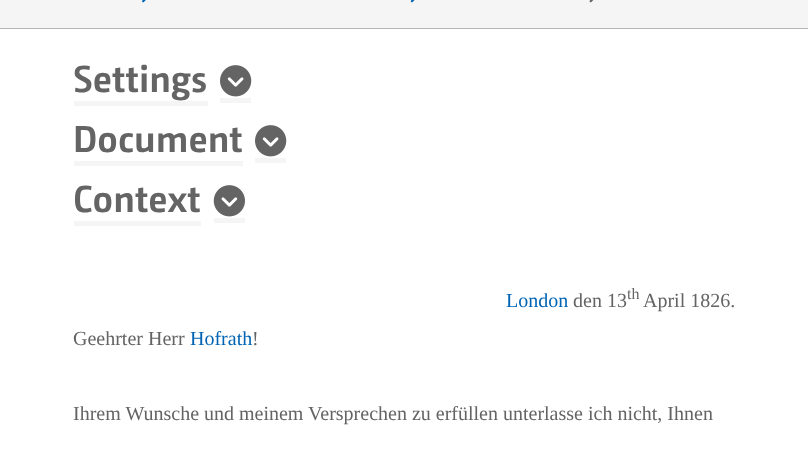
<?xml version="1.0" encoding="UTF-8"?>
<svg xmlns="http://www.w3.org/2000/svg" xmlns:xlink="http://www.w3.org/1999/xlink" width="808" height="449">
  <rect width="100%" height="100%" fill="#ffffff" />
  <rect width="808" height="28" fill="#f5f5f5" />
  <rect y="28" width="808" height="1" fill="#b5b5b5" />
  <image x="142" y="0" width="4" height="3" xlink:href="image1.png" />
  <image x="410" y="0" width="5" height="3" xlink:href="image2.png" />
  <image x="589" y="0" width="5" height="3" xlink:href="image3.png" />
  <rect x="74" y="101" width="134" height="5" fill="#f5f5f5" />
  <rect x="220" y="98" width="31" height="5" fill="#f5f5f5" />
  <image x="220" y="65" width="32" height="32" xlink:href="image4.png" />
  <rect x="74" y="161" width="169" height="5" fill="#f5f5f5" />
  <rect x="255" y="158" width="31" height="5" fill="#f5f5f5" />
  <image x="255" y="125" width="32" height="32" xlink:href="image4.png" />
  <rect x="74" y="221" width="127" height="5" fill="#f5f5f5" />
  <rect x="214" y="218" width="31" height="5" fill="#f5f5f5" />
  <image x="213" y="185" width="32" height="32" xlink:href="image5.png" />
  <text x="73" y="92" style="font-family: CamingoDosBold; font-size: 37.5px; font-weight: bold; fill: #646464">Settings</text>
  <text x="73" y="152" style="font-family: CamingoDosBold; font-size: 37.5px; font-weight: bold; fill: #646464">Document</text>
  <text x="73" y="212" style="font-family: CamingoDosBold; font-size: 37.5px; font-weight: bold; fill: #646464">Context</text>
  <text x="506" y="307" style="font-family: Liberation Serif; font-size: 20px; fill: #0064b4">London</text>
  <text x="573" y="307" style="font-family: Liberation Serif; font-size: 20px; fill: #646464">den 13</text>
  <text x="627" y="299" style="font-family: Liberation Serif; font-size: 16px; fill: #646464">th</text>
  <text x="643" y="307" style="font-family: Liberation Serif; font-size: 20px; fill: #646464">April 1826.</text>
  <text x="73" y="345" style="font-family: Liberation Serif; font-size: 20px; fill: #646464">Geehrter Herr</text>
  <text x="190" y="345" style="font-family: Liberation Serif; font-size: 20px; fill: #0064b4">Hofrath</text>
  <text x="252" y="345" style="font-family: Liberation Serif; font-size: 20px; fill: #646464">!</text>
  <text x="73" y="420" style="font-family: Liberation Serif; font-size: 20px; fill: #646464">Ihrem Wunsche und meinem Versprechen zu erfüllen unterlasse ich nicht, Ihnen</text>
</svg>
